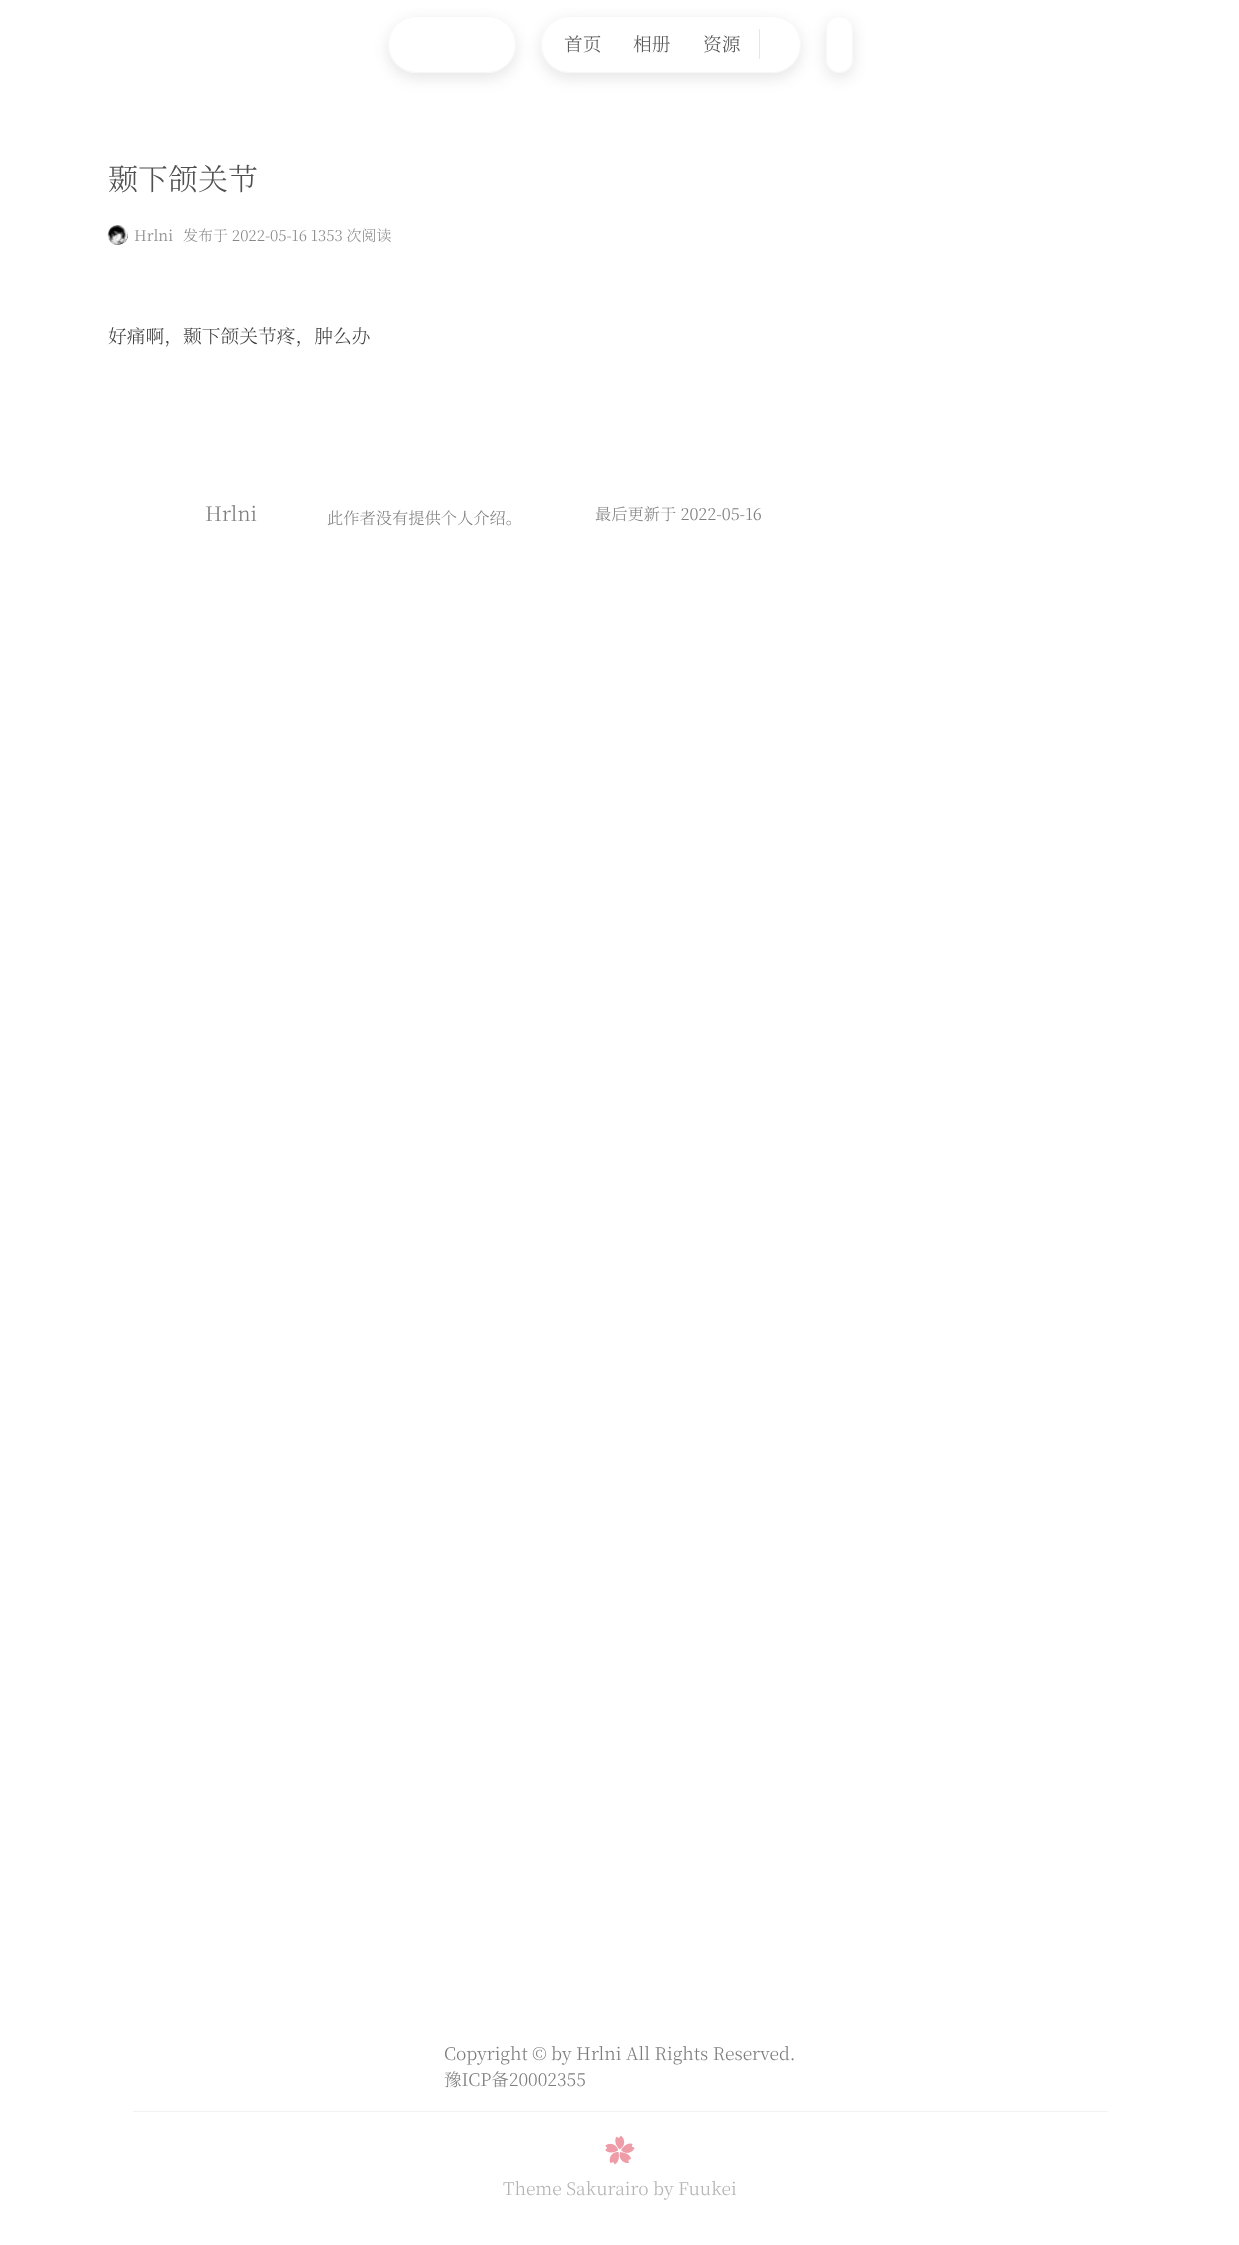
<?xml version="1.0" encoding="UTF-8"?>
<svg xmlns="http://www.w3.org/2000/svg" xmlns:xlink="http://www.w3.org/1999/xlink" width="1239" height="2245">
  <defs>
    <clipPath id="clip1"><path d="M 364 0 h 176 v 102 h -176 z m 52.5 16 h 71 c 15.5 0 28.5 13 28.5 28.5 c 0 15.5 -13 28.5 -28.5 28.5 h -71 c -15.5 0 -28.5 -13 -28.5 -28.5 c 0 -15.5 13 -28.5 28.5 -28.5 z" clip-rule="evenodd" /></clipPath>
    <clipPath id="clip2"><path d="M 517 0 h 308 v 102 h -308 z m 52.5 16 h 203 c 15.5 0 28.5 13 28.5 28.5 c 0 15.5 -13 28.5 -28.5 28.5 h -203 c -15.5 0 -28.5 -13 -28.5 -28.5 c 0 -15.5 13 -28.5 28.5 -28.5 z" clip-rule="evenodd" /></clipPath>
    <clipPath id="clip3"><path d="M 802 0 h 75 v 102 h -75 z m 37.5 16 c 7.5 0 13.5 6 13.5 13.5 v 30 c 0 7.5 -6 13.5 -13.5 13.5 c -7.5 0 -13.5 -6 -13.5 -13.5 v -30 c 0 -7.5 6 -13.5 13.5 -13.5 z" clip-rule="evenodd" /></clipPath>
  </defs>
  <rect width="100%" height="100%" fill="#ffffff" />
  <g clip-path="url(#clip1)">
    <rect x="388" y="21" width="128" height="57" rx="28.5" fill="#000000" fill-opacity="0.1" filter="blur(7.5px)" />
  </g>
  <rect x="388.5" y="16.5" width="127" height="56" rx="28" fill="#ffffff" fill-opacity="0.8" stroke="#f7f7f7" />
  <g clip-path="url(#clip2)">
    <rect x="541" y="21" width="260" height="57" rx="28.5" fill="#000000" fill-opacity="0.1" filter="blur(7.5px)" />
  </g>
  <rect x="541.5" y="16.5" width="259" height="56" rx="28" fill="#ffffff" fill-opacity="0.8" stroke="#f7f7f7" />
  <rect x="759" y="29" width="1" height="30" fill="#e6e6e6" />
  <g clip-path="url(#clip3)">
    <rect x="826" y="21" width="27" height="57" rx="13.5" fill="#000000" fill-opacity="0.1" filter="blur(7.5px)" />
  </g>
  <rect x="826.5" y="16.5" width="26" height="56" rx="13" fill="#ffffff" fill-opacity="0.8" stroke="#f7f7f7" />
  <path d="M 109 239.5 c 5.5 10.5 22 4 18.5 -7.5 c 2 11.5 -13 16.5 -18.5 7.5 z" fill="#333333" />
  <image x="107" y="225" width="21" height="20" xlink:href="image1.png" />
  <rect x="133" y="2111" width="975" height="1" fill="#f2f2f2" />
  <image x="605" y="2135" width="30" height="30" xlink:href="image2.png" />
  <text x="564" y="51" style="font-family: Noto Serif SC; font-size: 18.75px; font-weight: 300; fill: #505050">首页</text>
  <text x="633" y="51" style="font-family: Noto Serif SC; font-size: 18.75px; font-weight: 300; fill: #505050">相册</text>
  <text x="703" y="51" style="font-family: Noto Serif SC; font-size: 18.75px; font-weight: 300; fill: #505050">资源</text>
  <text x="108" y="190" style="font-family: Noto Serif SC; font-size: 30px; font-weight: 300; fill: #505050">颞下颌关节</text>
  <text x="134" y="241" style="font-family: Noto Serif SC; font-size: 15px; font-weight: 300; fill: #888888">Hrlni</text>
  <text x="183" y="241" style="font-family: Noto Serif SC; font-size: 15px; font-weight: 300; fill: #888888">发布于 2022-05-16 1353 次阅读</text>
  <text x="108" y="343" style="font-family: Noto Serif SC; font-size: 18.75px; font-weight: 300; fill: #3d3d3d">好痛啊，颞下颌关节疼，肿么办</text>
  <text x="205" y="521" style="font-family: Noto Serif SC; font-size: 20px; font-weight: 300; fill: #7d7d7d">Hrlni</text>
  <text x="327" y="524" style="font-family: Noto Serif SC; font-size: 16.25px; font-weight: 300; fill: #7d7d7d">此作者没有提供个人介绍。</text>
  <text x="595" y="520" style="font-family: Noto Serif SC; font-size: 16.25px; font-weight: 300; fill: #7d7d7d">最后更新于 2022-05-16</text>
  <text x="444" y="2060" style="font-family: Noto Serif SC; font-size: 17.5px; font-weight: 300; fill: #7d7d7d">Copyright © by Hrlni All Rights Reserved.</text>
  <text x="444" y="2086" style="font-family: Noto Serif SC; font-size: 17.5px; font-weight: 300; fill: #7d7d7d">豫ICP备20002355</text>
  <text x="503" y="2195" style="font-family: Noto Serif SC; font-size: 17.5px; font-weight: 300; fill: #b3b3b3">Theme Sakurairo by Fuukei</text>
</svg>
